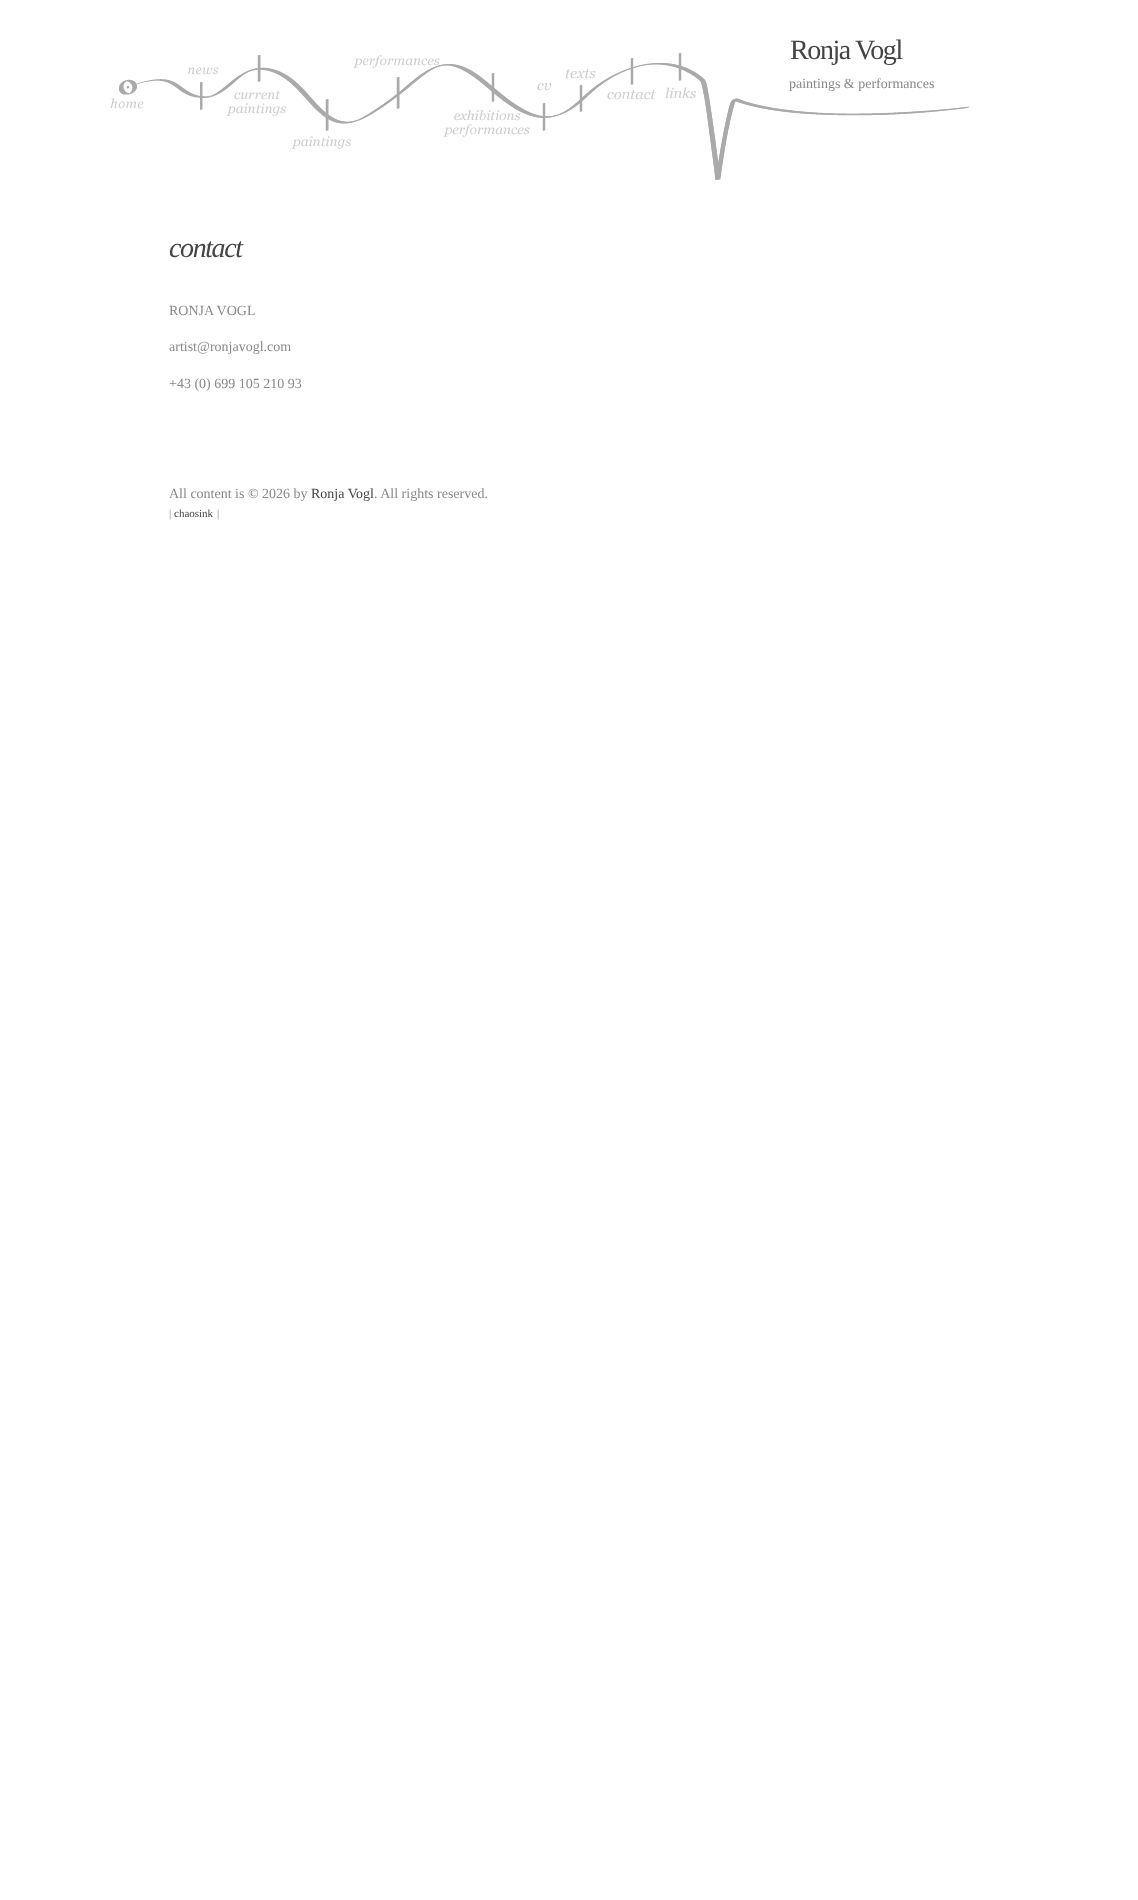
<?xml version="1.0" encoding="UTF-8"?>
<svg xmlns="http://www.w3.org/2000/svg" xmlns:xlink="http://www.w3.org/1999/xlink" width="1138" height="1900">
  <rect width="100%" height="100%" fill="#ffffff" />
  <image x="110" y="53" width="859" height="127" xlink:href="image1.png" />
  <text x="790" y="59" style="font-family: Liberation Serif; font-size: 28px; letter-spacing: -1.4px; fill: #444444">Ronja Vogl</text>
  <text x="789" y="88" style="font-family: Liberation Serif; font-size: 14px; fill: #888888">paintings &amp; performances</text>
  <text x="169" y="257" style="font-family: Liberation Serif; font-size: 28px; font-style: italic; letter-spacing: -1.4px; fill: #444444">contact</text>
  <text x="169" y="315" style="font-family: Liberation Serif; font-size: 14px; fill: #888888">RONJA VOGL</text>
  <text x="169" y="351" style="font-family: Liberation Serif; font-size: 14px; fill: #888888">artist@ronjavogl.com</text>
  <text x="169" y="388" style="font-family: Liberation Serif; font-size: 14px; fill: #888888">+43 (0) 699 105 210 93</text>
  <text x="169" y="498" style="font-family: Liberation Serif; font-size: 14px; fill: #888888">All content is © 2026 by</text>
  <text x="311" y="498" style="font-family: Liberation Serif; font-size: 14px; fill: #444444">Ronja Vogl</text>
  <text x="374" y="498" style="font-family: Liberation Serif; font-size: 14px; fill: #888888">. All rights reserved.</text>
  <text x="169" y="517" style="font-family: Liberation Serif; font-size: 11px; fill: #888888">|</text>
  <text x="174" y="517" style="font-family: Liberation Serif; font-size: 11px; fill: #444444">chaosink</text>
  <text x="217" y="517" style="font-family: Liberation Serif; font-size: 11px; fill: #888888">|</text>
</svg>
